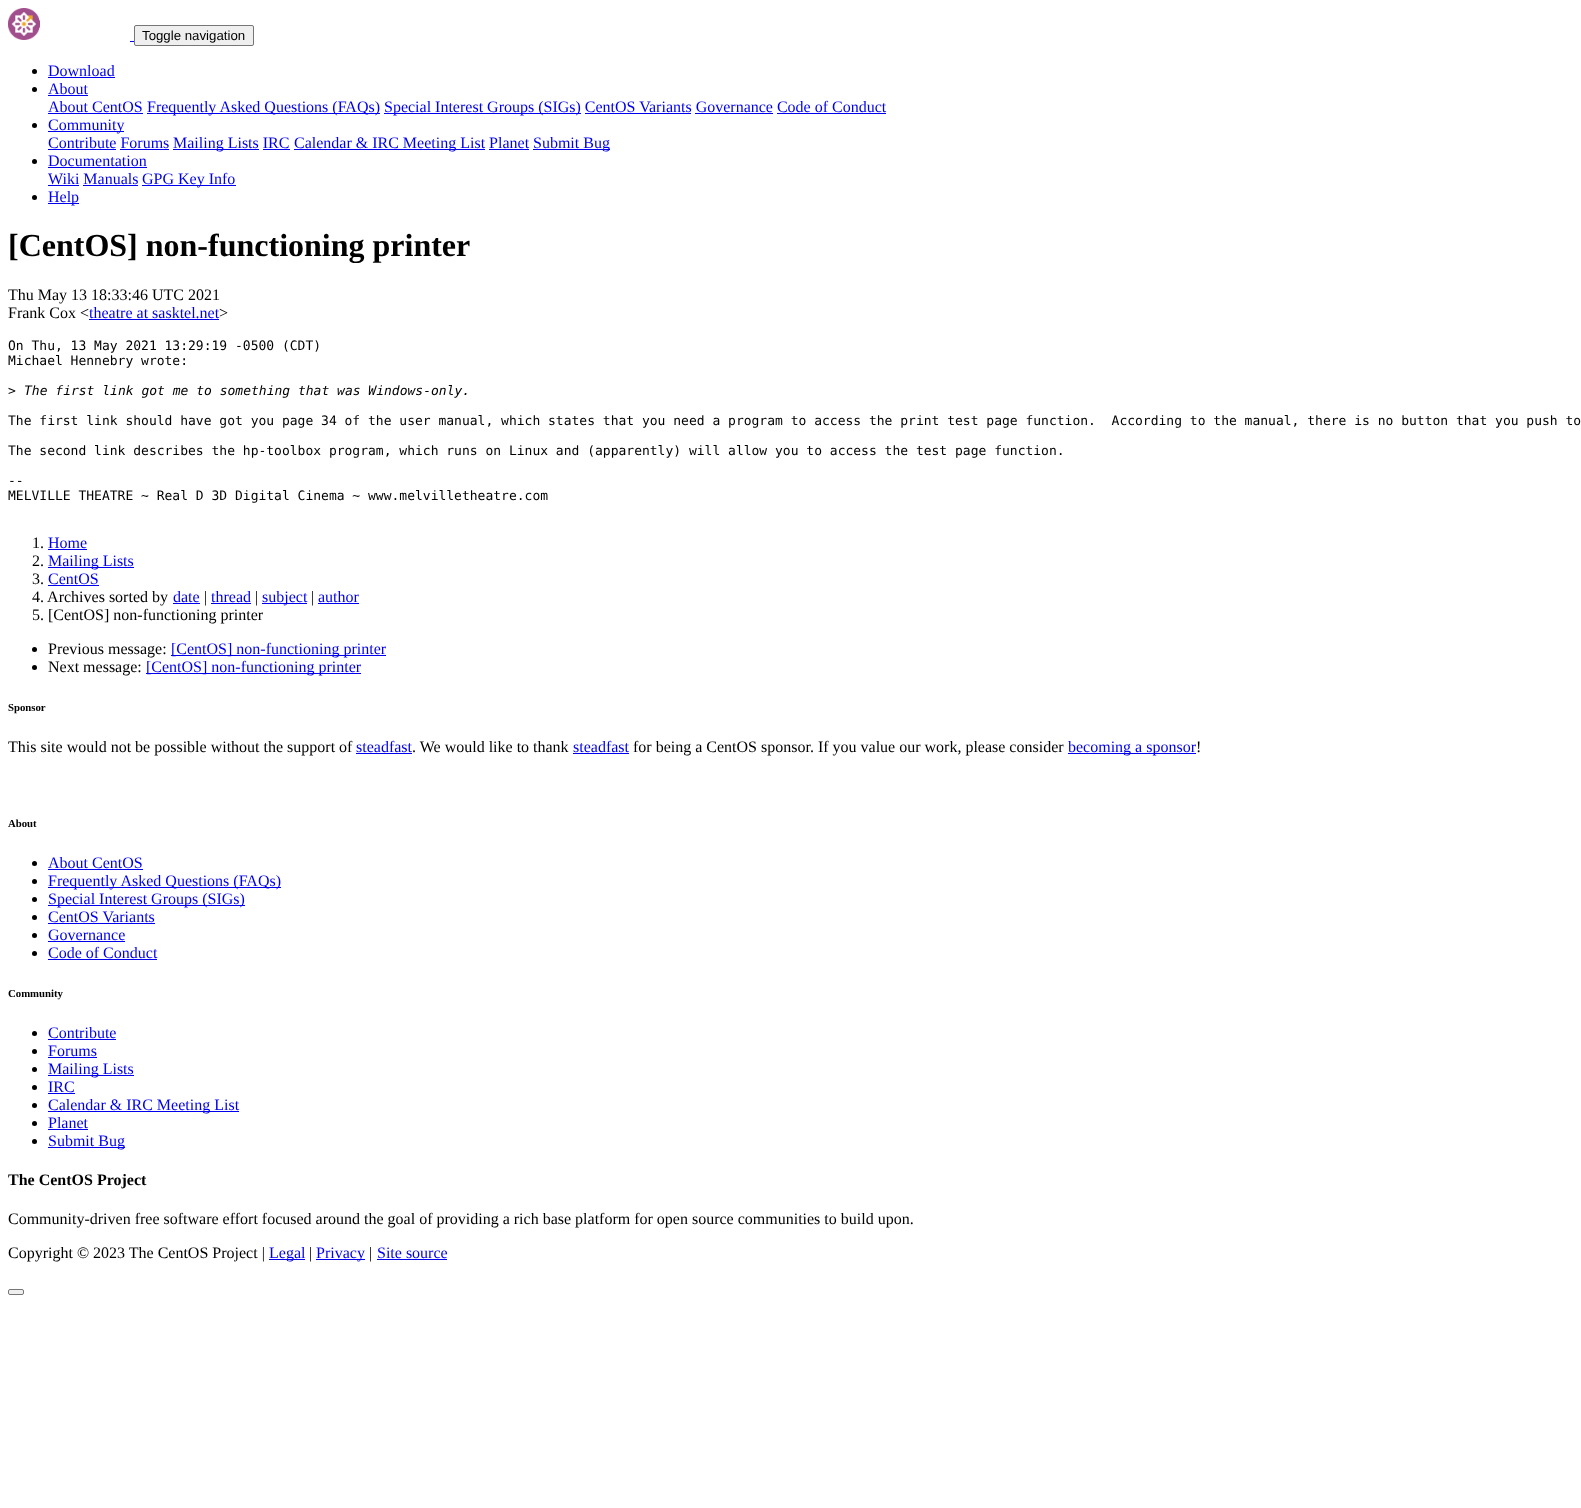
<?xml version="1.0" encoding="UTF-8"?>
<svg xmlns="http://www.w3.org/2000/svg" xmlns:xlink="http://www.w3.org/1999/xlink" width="1581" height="1508">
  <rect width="100%" height="100%" fill="#ffffff" />
  <image x="8" y="8" width="32" height="32" xlink:href="image1.png" />
  <rect x="130" y="41" width="4" height="1" fill="#0000ee" />
  <rect x="134.5" y="25.5" width="119" height="20" rx="1.5" fill="#efefef" stroke="#767676" />
  <circle cx="34.5" cy="71.5" r="2.5" fill="#000000" />
  <rect x="48" y="77" width="67" height="1" fill="#0000ee" />
  <circle cx="34.5" cy="89.5" r="2.5" fill="#000000" />
  <rect x="48" y="95" width="40" height="1" fill="#0000ee" />
  <rect x="48" y="113" width="95" height="1" fill="#0000ee" />
  <rect x="147" y="113" width="233" height="1" fill="#0000ee" />
  <rect x="384" y="113" width="197" height="1" fill="#0000ee" />
  <rect x="585" y="113" width="106" height="1" fill="#0000ee" />
  <rect x="695" y="113" width="78" height="1" fill="#0000ee" />
  <rect x="777" y="113" width="109" height="1" fill="#0000ee" />
  <circle cx="34.5" cy="125.5" r="2.5" fill="#000000" />
  <rect x="48" y="131" width="76" height="1" fill="#0000ee" />
  <rect x="48" y="149" width="68" height="1" fill="#0000ee" />
  <rect x="173" y="149" width="86" height="1" fill="#0000ee" />
  <rect x="294" y="149" width="191" height="1" fill="#0000ee" />
  <rect x="533" y="149" width="77" height="1" fill="#0000ee" />
  <rect x="120" y="149" width="49" height="1" fill="#0000ee" />
  <rect x="263" y="149" width="27" height="1" fill="#0000ee" />
  <rect x="489" y="149" width="40" height="1" fill="#0000ee" />
  <circle cx="34.5" cy="161.5" r="2.5" fill="#000000" />
  <rect x="48" y="167" width="99" height="1" fill="#0000ee" />
  <rect x="48" y="185" width="31" height="1" fill="#0000ee" />
  <rect x="142" y="185" width="94" height="1" fill="#0000ee" />
  <rect x="83" y="185" width="55" height="1" fill="#0000ee" />
  <circle cx="34.5" cy="197.5" r="2.5" fill="#000000" />
  <rect x="48" y="203" width="31" height="1" fill="#0000ee" />
  <rect x="89" y="319" width="130" height="1" fill="#0000ee" />
  <rect x="48" y="549" width="39" height="1" fill="#0000ee" />
  <rect x="48" y="567" width="86" height="1" fill="#0000ee" />
  <rect x="48" y="585" width="51" height="1" fill="#0000ee" />
  <rect x="173" y="603" width="27" height="1" fill="#0000ee" />
  <rect x="211" y="603" width="40" height="1" fill="#0000ee" />
  <rect x="262" y="603" width="45" height="1" fill="#0000ee" />
  <rect x="318" y="603" width="41" height="1" fill="#0000ee" />
  <circle cx="34.5" cy="649.5" r="2.5" fill="#000000" />
  <rect x="171" y="655" width="215" height="1" fill="#0000ee" />
  <circle cx="34.5" cy="667.5" r="2.5" fill="#000000" />
  <rect x="146" y="673" width="215" height="1" fill="#0000ee" />
  <rect x="356" y="753" width="56" height="1" fill="#0000ee" />
  <rect x="573" y="753" width="56" height="1" fill="#0000ee" />
  <rect x="1068" y="753" width="128" height="1" fill="#0000ee" />
  <circle cx="34.5" cy="863.5" r="2.5" fill="#000000" />
  <rect x="48" y="869" width="95" height="1" fill="#0000ee" />
  <circle cx="34.5" cy="881.5" r="2.5" fill="#000000" />
  <rect x="48" y="887" width="233" height="1" fill="#0000ee" />
  <circle cx="34.5" cy="899.5" r="2.5" fill="#000000" />
  <rect x="48" y="905" width="197" height="1" fill="#0000ee" />
  <circle cx="34.5" cy="917.5" r="2.5" fill="#000000" />
  <rect x="48" y="923" width="107" height="1" fill="#0000ee" />
  <circle cx="34.5" cy="935.5" r="2.5" fill="#000000" />
  <rect x="48" y="941" width="77" height="1" fill="#0000ee" />
  <circle cx="34.5" cy="953.5" r="2.5" fill="#000000" />
  <rect x="48" y="959" width="109" height="1" fill="#0000ee" />
  <circle cx="34.5" cy="1033.5" r="2.5" fill="#000000" />
  <rect x="48" y="1039" width="68" height="1" fill="#0000ee" />
  <circle cx="34.5" cy="1051.5" r="2.5" fill="#000000" />
  <rect x="48" y="1057" width="49" height="1" fill="#0000ee" />
  <circle cx="34.5" cy="1069.5" r="2.5" fill="#000000" />
  <rect x="48" y="1075" width="86" height="1" fill="#0000ee" />
  <circle cx="34.5" cy="1087.5" r="2.5" fill="#000000" />
  <rect x="48" y="1093" width="27" height="1" fill="#0000ee" />
  <circle cx="34.5" cy="1105.5" r="2.5" fill="#000000" />
  <rect x="48" y="1111" width="191" height="1" fill="#0000ee" />
  <circle cx="34.5" cy="1123.5" r="2.5" fill="#000000" />
  <rect x="48" y="1129" width="40" height="1" fill="#0000ee" />
  <circle cx="34.5" cy="1141.5" r="2.5" fill="#000000" />
  <rect x="48" y="1147" width="77" height="1" fill="#0000ee" />
  <rect x="269" y="1259" width="36" height="1" fill="#0000ee" />
  <rect x="316" y="1259" width="49" height="1" fill="#0000ee" />
  <rect x="377" y="1259" width="70" height="1" fill="#0000ee" />
  <rect x="8.5" y="1289.5" width="15" height="5" rx="1.5" fill="#efefef" stroke="#767676" />
  <text x="142" y="40" style="font-family: Liberation Sans; font-size: 13.25px; fill: #000000">Toggle navigation</text>
  <text x="48" y="76" style="font-family: Liberation Serif; font-size: 16px; fill: #0000ee">Download</text>
  <text x="48" y="94" style="font-family: Liberation Serif; font-size: 16px; fill: #0000ee">About</text>
  <text x="48" y="112" style="font-family: Liberation Serif; font-size: 16px; fill: #0000ee">About CentOS</text>
  <text x="147" y="112" style="font-family: Liberation Serif; font-size: 16px; fill: #0000ee">Frequently Asked Questions (FAQs)</text>
  <text x="384" y="112" style="font-family: Liberation Serif; font-size: 16px; fill: #0000ee">Special Interest Groups (SIGs) CentOS Variants Governance Code of Conduct</text>
  <text x="48" y="130" style="font-family: Liberation Serif; font-size: 16px; fill: #0000ee">Community</text>
  <text x="48" y="148" style="font-family: Liberation Serif; font-size: 16px; fill: #0000ee">Contribute Forums</text>
  <text x="173" y="148" style="font-family: Liberation Serif; font-size: 16px; fill: #0000ee">Mailing Lists IRC</text>
  <text x="294" y="148" style="font-family: Liberation Serif; font-size: 16px; fill: #0000ee">Calendar &amp; IRC Meeting List Planet</text>
  <text x="533" y="148" style="font-family: Liberation Serif; font-size: 16px; fill: #0000ee">Submit Bug</text>
  <text x="48" y="166" style="font-family: Liberation Serif; font-size: 16px; fill: #0000ee">Documentation</text>
  <text x="48" y="184" style="font-family: Liberation Serif; font-size: 16px; fill: #0000ee">Wiki Manuals</text>
  <text x="142" y="184" style="font-family: Liberation Serif; font-size: 16px; fill: #0000ee">GPG Key Info</text>
  <text x="48" y="202" style="font-family: Liberation Serif; font-size: 16px; fill: #0000ee">Help</text>
  <text x="8" y="256" style="font-family: Liberation Serif; font-size: 32px; font-weight: bold; fill: #000000">[CentOS] non-functioning printer</text>
  <text x="8" y="300" style="font-family: Liberation Serif; font-size: 16px; fill: #000000">Thu May 13 18:33:46 UTC 2021</text>
  <text x="8" y="318" style="font-family: Liberation Serif; font-size: 16px; fill: #000000">Frank Cox &lt;</text>
  <text x="89" y="318" style="font-family: Liberation Serif; font-size: 16px; fill: #0000ee">theatre at sasktel.net</text>
  <text x="219" y="318" style="font-family: Liberation Serif; font-size: 16px; fill: #000000">&gt;</text>
  <text x="8" y="350" style="font-family: DejaVu Sans Mono; font-size: 13px; fill: #000000">On Thu, 13 May 2021 13:29:19 -0500 (CDT)</text>
  <text x="8" y="365" style="font-family: DejaVu Sans Mono; font-size: 13px; fill: #000000">Michael Hennebry wrote:</text>
  <text x="8" y="395" style="font-family: DejaVu Sans Mono; font-size: 13px; fill: #000000">&gt;</text>
  <text x="24" y="395" style="font-family: DejaVu Sans Mono; font-size: 13px; font-style: italic; fill: #000000">The first link got me to something that was Windows-only.</text>
  <text x="8" y="425" style="font-family: DejaVu Sans Mono; font-size: 13px; fill: #000000" xml:space="preserve">The first link should have got you page 34 of the user manual, which states that you need a program to access the print test page function.  According to the manual, there is no button that you push to</text>
  <text x="8" y="455" style="font-family: DejaVu Sans Mono; font-size: 13px; fill: #000000">The second link describes the hp-toolbox program, which runs on Linux and (apparently) will allow you to access the test page function.</text>
  <text x="8" y="485" style="font-family: DejaVu Sans Mono; font-size: 13px; fill: #000000">--</text>
  <text x="8" y="500" style="font-family: DejaVu Sans Mono; font-size: 13px; fill: #000000">MELVILLE THEATRE ~ Real D 3D Digital Cinema ~ www.melvilletheatre.com</text>
  <text x="32" y="548" style="font-family: Liberation Serif; font-size: 16px; fill: #000000">1.</text>
  <text x="48" y="548" style="font-family: Liberation Serif; font-size: 16px; fill: #0000ee">Home</text>
  <text x="32" y="566" style="font-family: Liberation Serif; font-size: 16px; fill: #000000">2.</text>
  <text x="48" y="566" style="font-family: Liberation Serif; font-size: 16px; fill: #0000ee">Mailing Lists</text>
  <text x="32" y="584" style="font-family: Liberation Serif; font-size: 16px; fill: #000000">3.</text>
  <text x="48" y="584" style="font-family: Liberation Serif; font-size: 16px; fill: #0000ee">CentOS</text>
  <text x="32" y="602" style="font-family: Liberation Serif; font-size: 16px; fill: #000000">4. Archives sorted by</text>
  <text x="173" y="602" style="font-family: Liberation Serif; font-size: 16px; fill: #0000ee">date</text>
  <text x="204" y="602" style="font-family: Liberation Serif; font-size: 16px; fill: #000000">|</text>
  <text x="211" y="602" style="font-family: Liberation Serif; font-size: 16px; fill: #0000ee">thread</text>
  <text x="255" y="602" style="font-family: Liberation Serif; font-size: 16px; fill: #000000">|</text>
  <text x="262" y="602" style="font-family: Liberation Serif; font-size: 16px; fill: #0000ee">subject</text>
  <text x="311" y="602" style="font-family: Liberation Serif; font-size: 16px; fill: #000000">|</text>
  <text x="318" y="602" style="font-family: Liberation Serif; font-size: 16px; fill: #0000ee">author</text>
  <text x="32" y="620" style="font-family: Liberation Serif; font-size: 16px; fill: #000000">5. [CentOS] non-functioning printer</text>
  <text x="48" y="654" style="font-family: Liberation Serif; font-size: 16px; fill: #000000">Previous message:</text>
  <text x="171" y="654" style="font-family: Liberation Serif; font-size: 16px; fill: #0000ee">[CentOS] non-functioning printer</text>
  <text x="48" y="672" style="font-family: Liberation Serif; font-size: 16px; fill: #000000">Next message:</text>
  <text x="146" y="672" style="font-family: Liberation Serif; font-size: 16px; fill: #0000ee">[CentOS] non-functioning printer</text>
  <text x="8" y="711" style="font-family: Liberation Serif; font-size: 10.75px; font-weight: bold; fill: #000000">Sponsor</text>
  <text x="8" y="752" style="font-family: Liberation Serif; font-size: 16px; fill: #000000">This site would not be possible without the support of</text>
  <text x="356" y="752" style="font-family: Liberation Serif; font-size: 16px; fill: #0000ee">steadfast</text>
  <text x="412" y="752" style="font-family: Liberation Serif; font-size: 16px; fill: #000000">. We would like to thank</text>
  <text x="573" y="752" style="font-family: Liberation Serif; font-size: 16px; fill: #0000ee">steadfast</text>
  <text x="633" y="752" style="font-family: Liberation Serif; font-size: 16px; fill: #000000">for being a CentOS sponsor. If you value our work, please consider</text>
  <text x="1068" y="752" style="font-family: Liberation Serif; font-size: 16px; fill: #0000ee">becoming a sponsor</text>
  <text x="1196" y="752" style="font-family: Liberation Serif; font-size: 16px; fill: #000000">!</text>
  <text x="8" y="827" style="font-family: Liberation Serif; font-size: 10.75px; font-weight: bold; fill: #000000">About</text>
  <text x="48" y="868" style="font-family: Liberation Serif; font-size: 16px; fill: #0000ee">About CentOS</text>
  <text x="48" y="886" style="font-family: Liberation Serif; font-size: 16px; fill: #0000ee">Frequently Asked Questions (FAQs)</text>
  <text x="48" y="904" style="font-family: Liberation Serif; font-size: 16px; fill: #0000ee">Special Interest Groups (SIGs)</text>
  <text x="48" y="922" style="font-family: Liberation Serif; font-size: 16px; fill: #0000ee">CentOS Variants</text>
  <text x="48" y="940" style="font-family: Liberation Serif; font-size: 16px; fill: #0000ee">Governance</text>
  <text x="48" y="958" style="font-family: Liberation Serif; font-size: 16px; fill: #0000ee">Code of Conduct</text>
  <text x="8" y="997" style="font-family: Liberation Serif; font-size: 10.75px; font-weight: bold; fill: #000000">Community</text>
  <text x="48" y="1038" style="font-family: Liberation Serif; font-size: 16px; fill: #0000ee">Contribute</text>
  <text x="48" y="1056" style="font-family: Liberation Serif; font-size: 16px; fill: #0000ee">Forums</text>
  <text x="48" y="1074" style="font-family: Liberation Serif; font-size: 16px; fill: #0000ee">Mailing Lists</text>
  <text x="48" y="1092" style="font-family: Liberation Serif; font-size: 16px; fill: #0000ee">IRC</text>
  <text x="48" y="1110" style="font-family: Liberation Serif; font-size: 16px; fill: #0000ee">Calendar &amp; IRC Meeting List</text>
  <text x="48" y="1128" style="font-family: Liberation Serif; font-size: 16px; fill: #0000ee">Planet</text>
  <text x="48" y="1146" style="font-family: Liberation Serif; font-size: 16px; fill: #0000ee">Submit Bug</text>
  <text x="8" y="1185" style="font-family: Liberation Serif; font-size: 16px; font-weight: bold; fill: #000000">The CentOS Project</text>
  <text x="8" y="1224" style="font-family: Liberation Serif; font-size: 16px; fill: #000000">Community-driven free software effort focused around the goal of providing a rich base platform for open source communities to build upon.</text>
  <text x="8" y="1258" style="font-family: Liberation Serif; font-size: 16px; fill: #000000">Copyright © 2023 The CentOS Project |</text>
  <text x="269" y="1258" style="font-family: Liberation Serif; font-size: 16px; fill: #0000ee">Legal</text>
  <text x="309" y="1258" style="font-family: Liberation Serif; font-size: 16px; fill: #000000">|</text>
  <text x="316" y="1258" style="font-family: Liberation Serif; font-size: 16px; fill: #0000ee">Privacy</text>
  <text x="369" y="1258" style="font-family: Liberation Serif; font-size: 16px; fill: #000000">|</text>
  <text x="377" y="1258" style="font-family: Liberation Serif; font-size: 16px; fill: #0000ee">Site source</text>
</svg>
